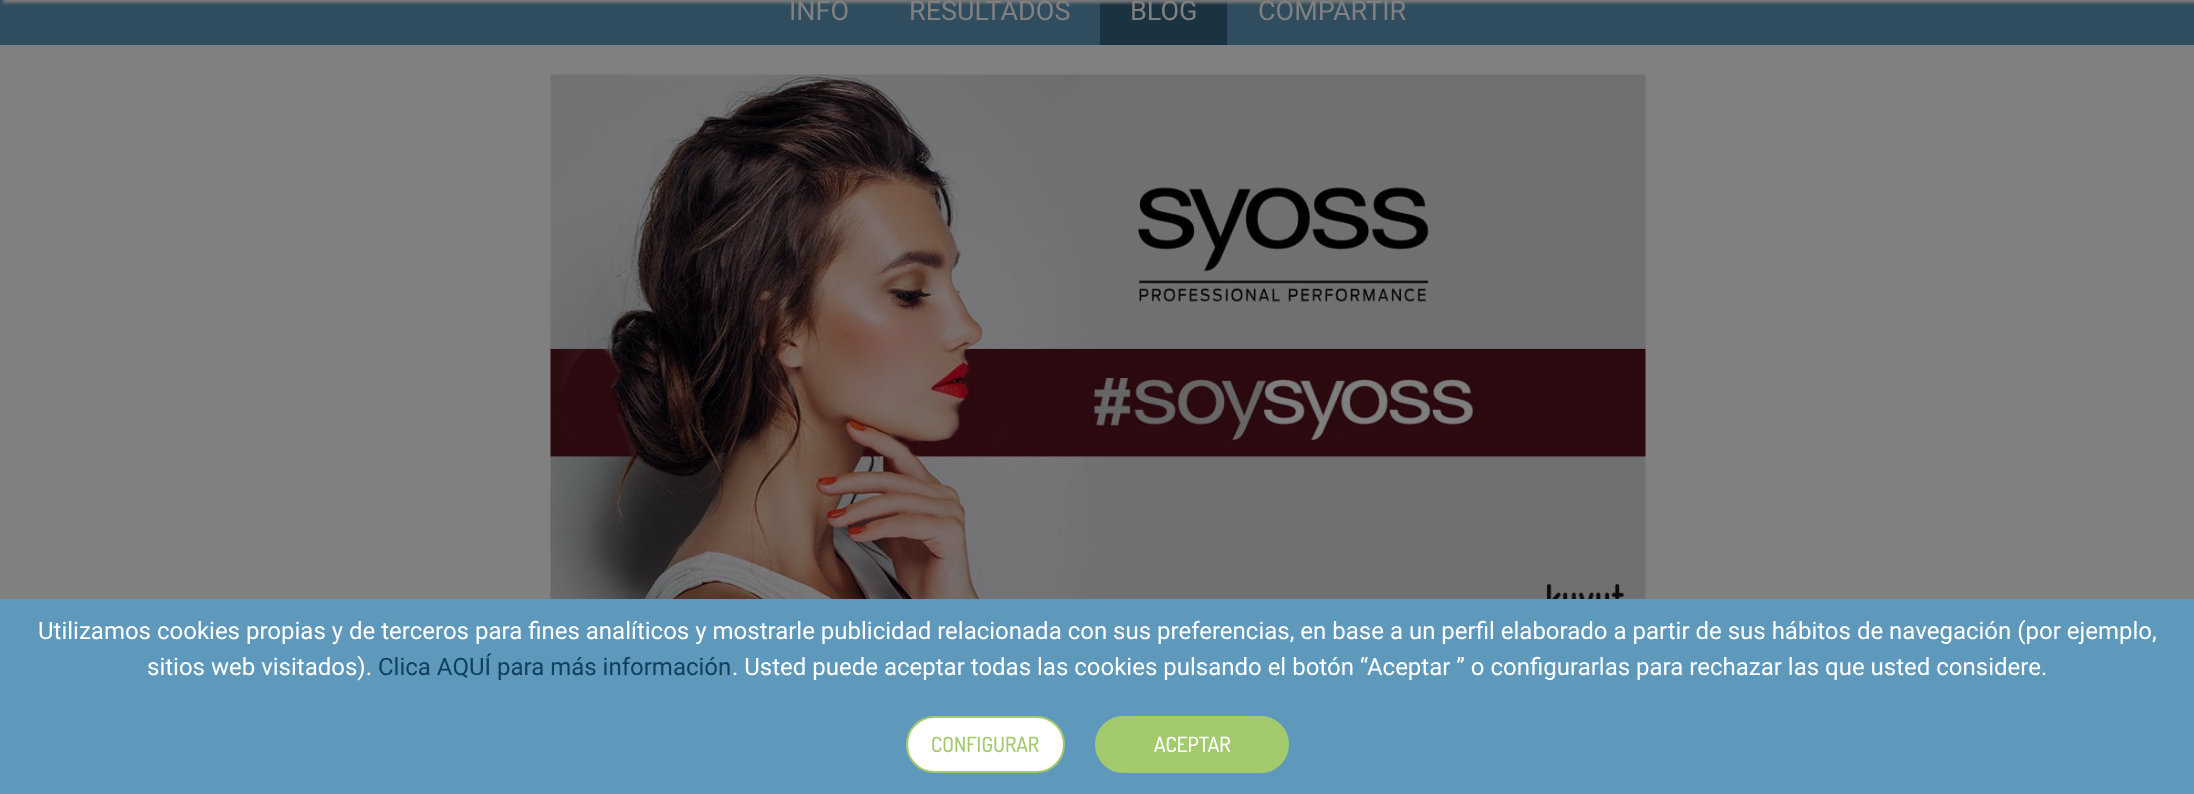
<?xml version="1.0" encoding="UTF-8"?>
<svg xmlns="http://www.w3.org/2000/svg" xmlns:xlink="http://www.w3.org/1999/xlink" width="2194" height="794">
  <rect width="100%" height="100%" fill="#808080" />
  <rect width="2194" height="45" fill="#2f4d5e" />
  <rect x="1100" width="127" height="45" fill="#1b3240" />
  <rect x="3" y="-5" width="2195" height="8" fill="#777777" filter="blur(1.5px)" />
  <image x="550" y="74" width="1096" height="525" xlink:href="image1.png" />
  <rect y="599" width="2194" height="195" fill="#5e99bc" />
  <rect x="907" y="717" width="157" height="55" rx="27.5" fill="#ffffff" stroke="#a3ca6d" stroke-width="2" />
  <rect x="1096" y="717" width="192" height="55" rx="27.5" fill="#a3ca6d" stroke="#a3ca6d" stroke-width="2" />
  <text x="789" y="20" style="font-family: Roboto; font-size: 27px; fill: #808080">INFO</text>
  <text x="909" y="20" style="font-family: Roboto; font-size: 27px; fill: #808080">RESULTADOS</text>
  <text x="1130" y="20" style="font-family: Roboto; font-size: 27px; fill: #808080">BLOG</text>
  <text x="1258" y="20" style="font-family: Roboto; font-size: 27px; fill: #808080">COMPARTIR</text>
  <text x="38" y="639" style="font-family: Roboto; font-size: 24px; fill: #ffffff">Utilizamos cookies propias y de terceros para fines analíticos y mostrarle publicidad relacionada con sus preferencias, en base a un perfil elaborado a partir de sus hábitos de navegación (por ejemplo,</text>
  <text x="147" y="675" style="font-family: Roboto; font-size: 24px; fill: #ffffff">sitios web visitados).</text>
  <text x="378" y="675" style="font-family: Roboto; font-size: 24px; fill: #10405d">Clica AQUÍ para más información</text>
  <text x="732" y="675" style="font-family: Roboto; font-size: 24px; fill: #ffffff">. Usted puede aceptar todas las cookies pulsando el botón “Aceptar ” o configurarlas para rechazar las que usted considere.</text>
  <text x="931" y="752" style="font-family: Dosis; font-size: 21px; font-weight: 500; fill: #a3ca6d">CONFIGURAR</text>
  <text x="1154" y="752" style="font-family: Dosis; font-size: 21px; font-weight: 500; fill: #ffffff">ACEPTAR</text>
</svg>
